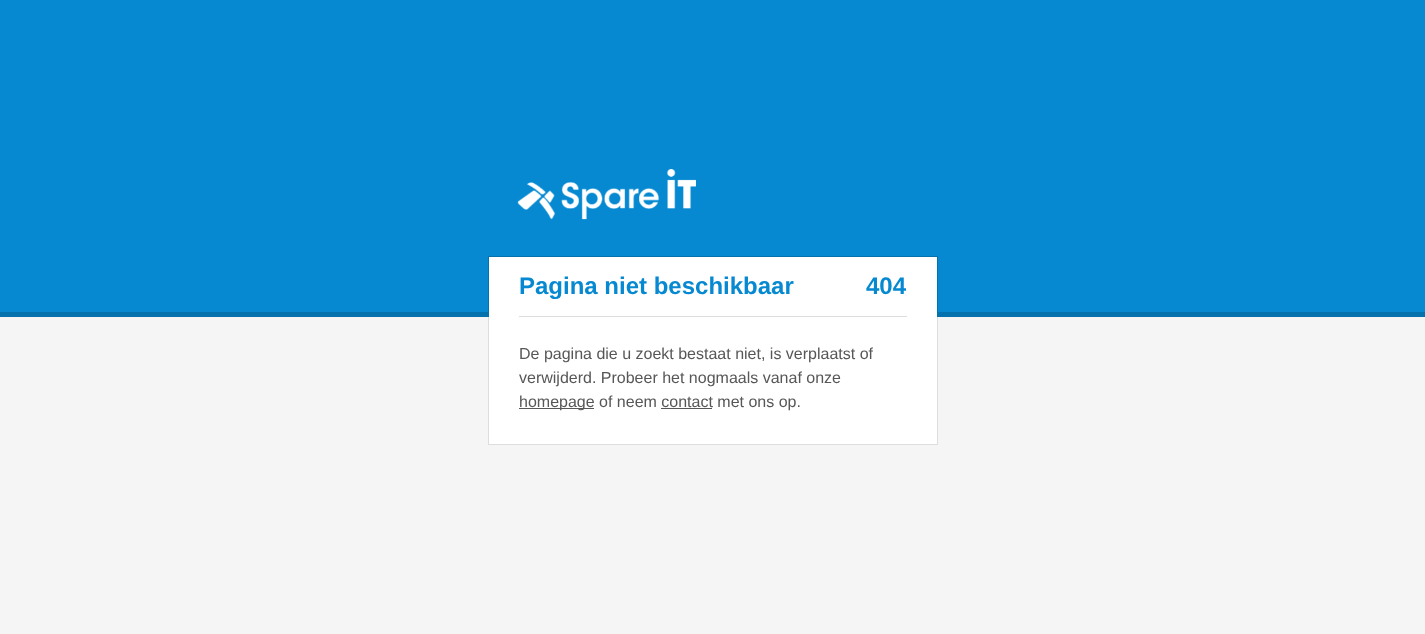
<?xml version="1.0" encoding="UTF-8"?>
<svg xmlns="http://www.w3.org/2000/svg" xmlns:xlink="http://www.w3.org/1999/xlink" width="1425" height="634">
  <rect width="100%" height="100%" fill="#f5f5f5" />
  <rect width="1425" height="312" fill="#0689d1" />
  <rect y="312" width="1425" height="5" fill="#0572ae" />
  <image x="517" y="169" width="179" height="51" xlink:href="image1.png" />
  <rect x="489" y="257" width="448" height="187" fill="#ffffff" />
  <rect x="488" y="256" width="450" height="1" fill="#0572ae" />
  <rect x="937" y="256" width="1" height="61" fill="#0572ae" />
  <rect x="488" y="256" width="1" height="61" fill="#0572ae" />
  <rect x="519" y="316" width="388" height="1" fill="#dddddd" />
  <rect x="937" y="317" width="1" height="128" fill="#dddddd" />
  <rect x="488" y="444" width="450" height="1" fill="#dddddd" />
  <rect x="488" y="317" width="1" height="128" fill="#dddddd" />
  <rect x="519" y="408" width="75" height="1" fill="#575757" />
  <rect x="661" y="408" width="51" height="1" fill="#575757" />
  <text x="519" y="294" style="font-family: Liberation Sans; font-size: 24px; font-weight: bold; fill: #0689d1">Pagina niet beschikbaar</text>
  <text x="866" y="294" style="font-family: Liberation Sans; font-size: 24px; font-weight: bold; fill: #0689d1">404</text>
  <text x="519" y="359" style="font-family: Liberation Sans; font-size: 16px; fill: #575757">De pagina die u zoekt bestaat niet, is verplaatst of</text>
  <text x="519" y="383" style="font-family: Liberation Sans; font-size: 16px; fill: #575757">verwijderd. Probeer het nogmaals vanaf onze</text>
  <text x="519" y="407" style="font-family: Liberation Sans; font-size: 16px; fill: #575757">homepage of neem contact met ons op.</text>
</svg>
